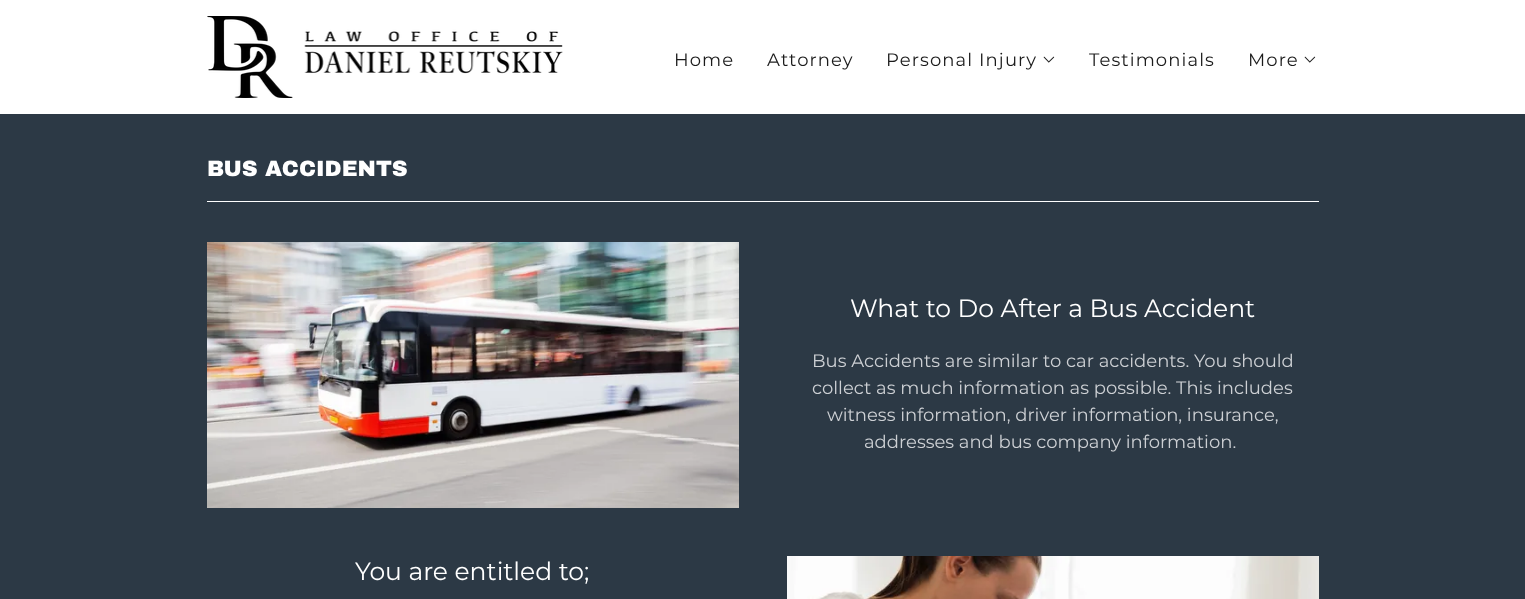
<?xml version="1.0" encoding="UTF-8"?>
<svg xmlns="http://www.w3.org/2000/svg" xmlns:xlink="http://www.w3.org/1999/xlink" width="1525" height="599">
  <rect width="100%" height="100%" fill="#ffffff" />
  <image x="207" y="16" width="356" height="82" xlink:href="image1.png" />
  <image x="1043" y="56" width="12" height="7" xlink:href="image2.png" />
  <image x="1304" y="56" width="12" height="7" xlink:href="image2.png" />
  <rect y="114" width="1525" height="485" fill="#2c3945" />
  <rect x="207" y="201" width="1112" height="1" fill="#ffffff" />
  <image x="207" y="242" width="532" height="266" xlink:href="image3.png" />
  <image x="787" y="556" width="532" height="43" xlink:href="image4.png" />
  <text x="674" y="66" style="font-family: Montserrat; font-size: 18px; letter-spacing: 1.1px; fill: #1b1b1b">Home</text>
  <text x="767" y="66" style="font-family: Montserrat; font-size: 18px; letter-spacing: 1.1px; fill: #1b1b1b">Attorney</text>
  <text x="886" y="66" style="font-family: Montserrat; font-size: 18px; letter-spacing: 1.1px; fill: #1b1b1b">Personal Injury</text>
  <text x="1089" y="66" style="font-family: Montserrat; font-size: 18px; letter-spacing: 1.1px; fill: #1b1b1b">Testimonials</text>
  <text x="1248" y="66" style="font-family: Montserrat; font-size: 18px; letter-spacing: 1.1px; fill: #1b1b1b">More</text>
  <text x="207" y="176" style="font-family: Archivo Black; font-size: 22px; font-weight: 900; fill: #ffffff">BUS ACCIDENTS</text>
  <text x="850" y="317" style="font-family: Montserrat; font-size: 25px; fill: #ffffff">What to Do After a Bus Accident</text>
  <text x="812" y="367" style="font-family: Montserrat; font-size: 18px; fill: #cdd0d4">Bus Accidents are similar to car accidents. You should</text>
  <text x="812" y="394" style="font-family: Montserrat; font-size: 18px; fill: #cdd0d4">collect as much information as possible. This includes</text>
  <text x="827" y="421" style="font-family: Montserrat; font-size: 18px; fill: #cdd0d4">witness information, driver information, insurance,</text>
  <text x="864" y="448" style="font-family: Montserrat; font-size: 18px; fill: #cdd0d4">addresses and bus company information.</text>
  <text x="355" y="580" style="font-family: Montserrat; font-size: 25px; fill: #ffffff">You are entitled to;</text>
</svg>
